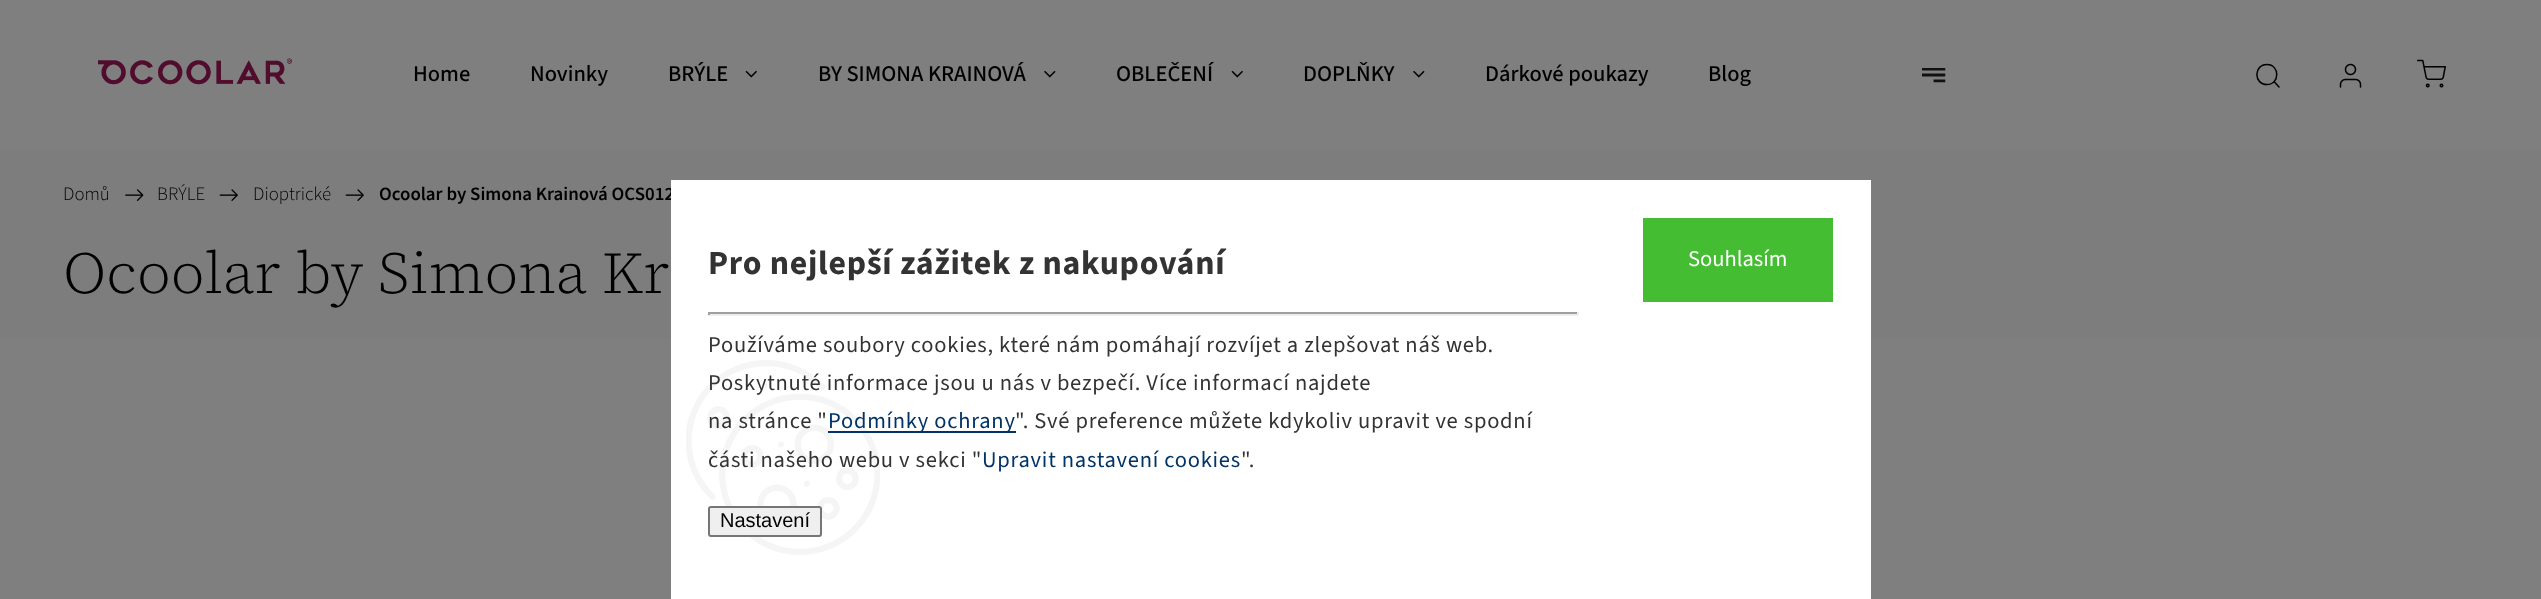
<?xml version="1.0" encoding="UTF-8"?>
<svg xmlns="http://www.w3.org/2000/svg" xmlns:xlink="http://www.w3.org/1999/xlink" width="2541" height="599">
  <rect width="100%" height="100%" fill="#ffffff" />
  <image x="98" y="58" width="195" height="27" xlink:href="image1.png" />
  <path d="M 2267 84.5 c 13 0 13 -20 0 -20 c -13.5 0 -13.5 20 0 20 z m 12 2.5 l -5 -5.5" fill="none" stroke="#000000" stroke-width="1.5" stroke-linecap="round" stroke-linejoin="round" />
  <image x="2339" y="63" width="23" height="25" xlink:href="image2.png" />
  <image x="2417" y="59" width="29" height="29" xlink:href="image3.png" />
  <image x="745" y="70" width="12" height="8" xlink:href="image4.png" />
  <image x="1044" y="70" width="12" height="8" xlink:href="image5.png" />
  <image x="1231" y="70" width="12" height="8" xlink:href="image4.png" />
  <image x="1413" y="70" width="12" height="8" xlink:href="image5.png" />
  <image x="1922" y="68" width="24" height="15" xlink:href="image6.png" />
  <rect y="150" width="2541" height="188" fill="#fafafa" />
  <image x="125" y="189" width="19" height="12" xlink:href="image7.png" />
  <image x="219" y="189" width="19" height="12" xlink:href="image8.png" />
  <image x="345" y="189" width="19" height="12" xlink:href="image8.png" />
  <rect x="-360" y="-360" width="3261" height="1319" fill="#000000" fill-opacity="0.5" filter="blur(120px)" />
  <text x="413" y="81" style="font-family: 'Source Sans 3'; font-size: 22.5px; font-weight: 500; fill: #000000">Home</text>
  <text x="530" y="81" style="font-family: 'Source Sans 3'; font-size: 22.5px; font-weight: 500; fill: #000000">Novinky</text>
  <text x="668" y="81" style="font-family: 'Source Sans 3'; font-size: 22.5px; font-weight: 500; fill: #000000">BRÝLE</text>
  <text x="818" y="81" style="font-family: 'Source Sans 3'; font-size: 22.5px; font-weight: 500; fill: #000000">BY SIMONA KRAINOVÁ</text>
  <text x="1116" y="81" style="font-family: 'Source Sans 3'; font-size: 22.5px; font-weight: 500; fill: #000000">OBLEČENÍ</text>
  <text x="1303" y="81" style="font-family: 'Source Sans 3'; font-size: 22.5px; font-weight: 500; fill: #000000">DOPLŇKY</text>
  <text x="1485" y="81" style="font-family: 'Source Sans 3'; font-size: 22.5px; font-weight: 500; fill: #000000">Dárkové poukazy</text>
  <text x="1708" y="81" style="font-family: 'Source Sans 3'; font-size: 22.5px; font-weight: 500; fill: #000000">Blog</text>
  <text x="63" y="200" style="font-family: 'Source Sans 3'; font-size: 18.9px; font-weight: 300; fill: #000000">Domů</text>
  <text x="157" y="200" style="font-family: 'Source Sans 3'; font-size: 18.9px; font-weight: 300; fill: #000000">BRÝLE</text>
  <text x="253" y="200" style="font-family: 'Source Sans 3'; font-size: 18.9px; font-weight: 300; fill: #000000">Dioptrické</text>
  <text x="379" y="200" style="font-family: 'Source Sans 3'; font-size: 18.9px; font-weight: 600; fill: #000000">Ocoolar by Simona Krainová OCS012</text>
  <text x="63" y="293" style="font-family: 'Source Serif 4'; font-size: 58.75px; font-weight: 300; fill: #000000">Ocoolar by Simona Kr</text>
  <rect x="671" y="180" width="1200" height="419" fill="#ffffff" />
  <text x="708" y="274" style="font-family: 'Source Sans 3'; font-size: 33.75px; font-weight: bold; letter-spacing: 0.75px; fill: #333333">Pro nejlepší zážitek z nakupování</text>
  <rect x="708" y="312" width="870" height="2" fill="#9f9f9f" />
  <rect x="1577" y="312" width="2" height="3" fill="#eeeeee" />
  <rect x="708" y="314" width="870" height="2" fill="#eeeeee" />
  <rect x="708" y="312" width="2" height="3" fill="#9f9f9f" />
  <text x="708" y="352" style="font-family: 'Source Sans 3'; font-size: 22.5px; letter-spacing: 0.75px; fill: #333333">Používáme soubory cookies, které nám pomáhají rozvíjet a zlepšovat náš web.</text>
  <text x="1015" y="428" style="font-family: 'Source Sans 3'; font-size: 22.5px; letter-spacing: 0.75px; fill: #333333">". Své preference můžete kdykoliv upravit ve spodní</text>
  <text x="982" y="467" style="font-family: 'Source Sans 3'; font-size: 22.5px; letter-spacing: 0.75px; fill: #003366">Upravit nastavení cookies</text>
  <text x="1241" y="467" style="font-family: 'Source Sans 3'; font-size: 22.5px; letter-spacing: 0.75px; fill: #333333">".</text>
  <rect x="1643" y="218" width="190" height="84" fill="#44bd32" />
  <text x="1688" y="266" style="font-family: 'Source Sans 3'; font-size: 22.5px; fill: #ffffff">Souhlasím</text>
  <image x="686" y="360" width="194" height="195" xlink:href="image9.png" />
  <rect x="709" y="507" width="112" height="29" rx="2" fill="#efefef" stroke="#767676" stroke-width="2" />
  <text x="720" y="527" style="font-family: Liberation Sans; font-size: 20px; fill: #000000">Nastavení</text>
  <text x="708" y="467" style="font-family: 'Source Sans 3'; font-size: 22.5px; letter-spacing: 0.75px; fill: #333333">části našeho webu v sekci "</text>
  <rect x="828" y="431" width="188" height="2" fill="#003366" />
  <text x="828" y="428" style="font-family: 'Source Sans 3'; font-size: 22.5px; letter-spacing: 0.75px; fill: #003366">Podmínky ochrany</text>
  <text x="708" y="428" style="font-family: 'Source Sans 3'; font-size: 22.5px; letter-spacing: 0.75px; fill: #333333">na stránce "</text>
  <text x="708" y="390" style="font-family: 'Source Sans 3'; font-size: 22.5px; letter-spacing: 0.75px; fill: #333333">Poskytnuté informace jsou u nás v bezpečí. Více informací najdete</text>
</svg>
